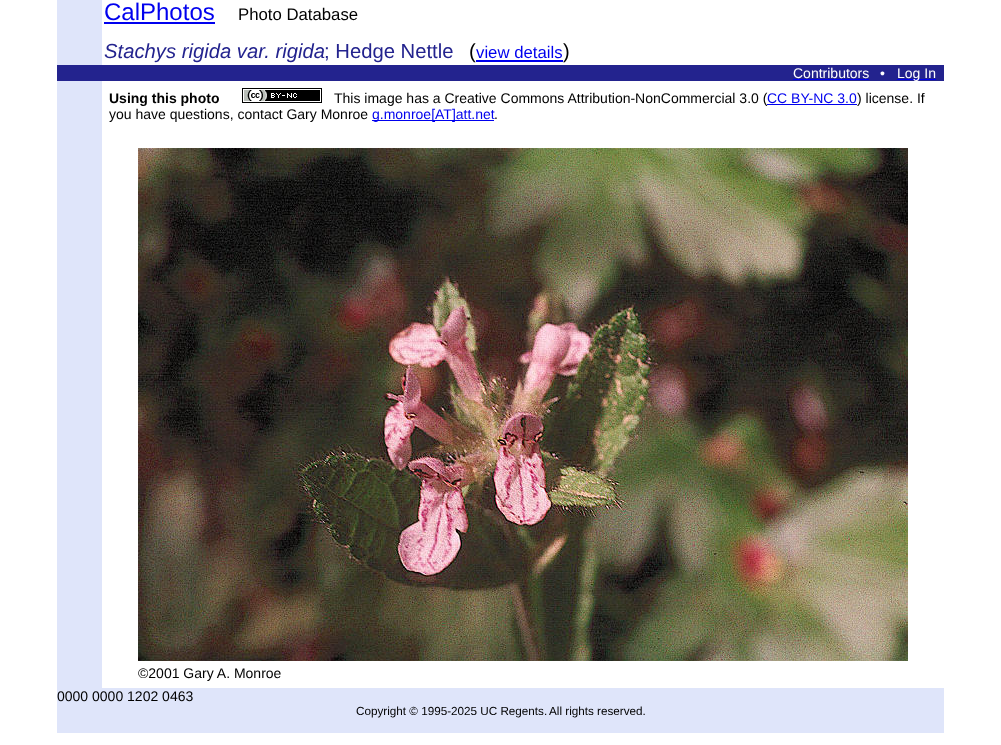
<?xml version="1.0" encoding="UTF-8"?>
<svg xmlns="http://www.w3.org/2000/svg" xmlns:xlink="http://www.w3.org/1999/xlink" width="1001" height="745">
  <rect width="100%" height="100%" fill="#ffffff" />
  <rect x="57" width="45" height="65" fill="#dfe5fa" />
  <rect x="104" y="22" width="111" height="2" fill="#0000ee" />
  <rect x="476" y="60" width="87" height="2" fill="#0000ee" />
  <rect x="57" y="65" width="887" height="16" fill="#23238e" />
  <rect x="793" y="79" width="76" height="1" fill="#0000ee" />
  <rect x="897" y="79" width="39" height="1" fill="#0000ee" />
  <rect x="57" y="81" width="45" height="607" fill="#dfe5fa" />
  <image x="242" y="88" width="80" height="15" xlink:href="image1.png" />
  <rect x="372" y="120" width="122" height="1" fill="#0000ee" />
  <image x="138" y="148" width="770" height="513" xlink:href="image2.png" />
  <rect x="57" y="688" width="887" height="45" fill="#dfe5fa" />
  <text x="104" y="20" style="font-family: Liberation Sans; font-size: 24px; fill: #0000ee">CalPhotos</text>
  <text x="238" y="20" style="font-family: Liberation Sans; font-size: 16.75px; fill: #000000">Photo Database</text>
  <text x="104" y="58" style="font-family: Liberation Sans; font-size: 20.25px; font-style: italic; fill: #23238e">Stachys rigida var. rigida</text>
  <text x="324" y="58" style="font-family: Liberation Sans; font-size: 20.25px; fill: #23238e">; Hedge Nettle</text>
  <text x="469" y="58" style="font-family: Liberation Sans; font-size: 20.25px; fill: #000000">(</text>
  <text x="476" y="58" style="font-family: Liberation Sans; font-size: 16.75px; fill: #0000ee">view details</text>
  <text x="563" y="58" style="font-family: Liberation Sans; font-size: 20.25px; fill: #000000">)</text>
  <text x="793" y="78" style="font-family: Liberation Sans; font-size: 14px; fill: #ffffff">Contributors</text>
  <text x="880" y="78" style="font-family: Liberation Sans; font-size: 14px; fill: #ffffff">•</text>
  <text x="897" y="78" style="font-family: Liberation Sans; font-size: 14px; fill: #ffffff">Log In</text>
  <text x="109" y="103" style="font-family: Liberation Sans; font-size: 14px; font-weight: bold; fill: #000000">Using this photo</text>
  <text x="334" y="103" style="font-family: Liberation Sans; font-size: 14px; fill: #000000">This image has a Creative Commons Attribution-NonCommercial 3.0 (</text>
  <text x="767" y="103" style="font-family: Liberation Sans; font-size: 14px; fill: #0000ee">CC BY-NC 3.0</text>
  <rect x="767" y="104" width="90" height="1" fill="#0000ee" />
  <text x="857" y="103" style="font-family: Liberation Sans; font-size: 14px; fill: #000000">) license. If</text>
  <text x="109" y="119" style="font-family: Liberation Sans; font-size: 14px; fill: #000000">you have questions, contact Gary Monroe</text>
  <text x="372" y="119" style="font-family: Liberation Sans; font-size: 14px; fill: #0000ee">g.monroe[AT]att.net</text>
  <text x="494" y="119" style="font-family: Liberation Sans; font-size: 14px; fill: #000000">.</text>
  <text x="138" y="678" style="font-family: Liberation Sans; font-size: 14px; fill: #000000">©2001 Gary A. Monroe</text>
  <text x="57" y="701" style="font-family: Liberation Sans; font-size: 14px; fill: #000000">0000 0000 1202 0463</text>
  <text x="356" y="715" style="font-family: Liberation Sans; font-size: 11.7px; fill: #000000">Copyright © 1995-2025 UC Regents.</text>
  <text x="549" y="715" style="font-family: Liberation Sans; font-size: 11.7px; fill: #000000">All rights reserved.</text>
</svg>
